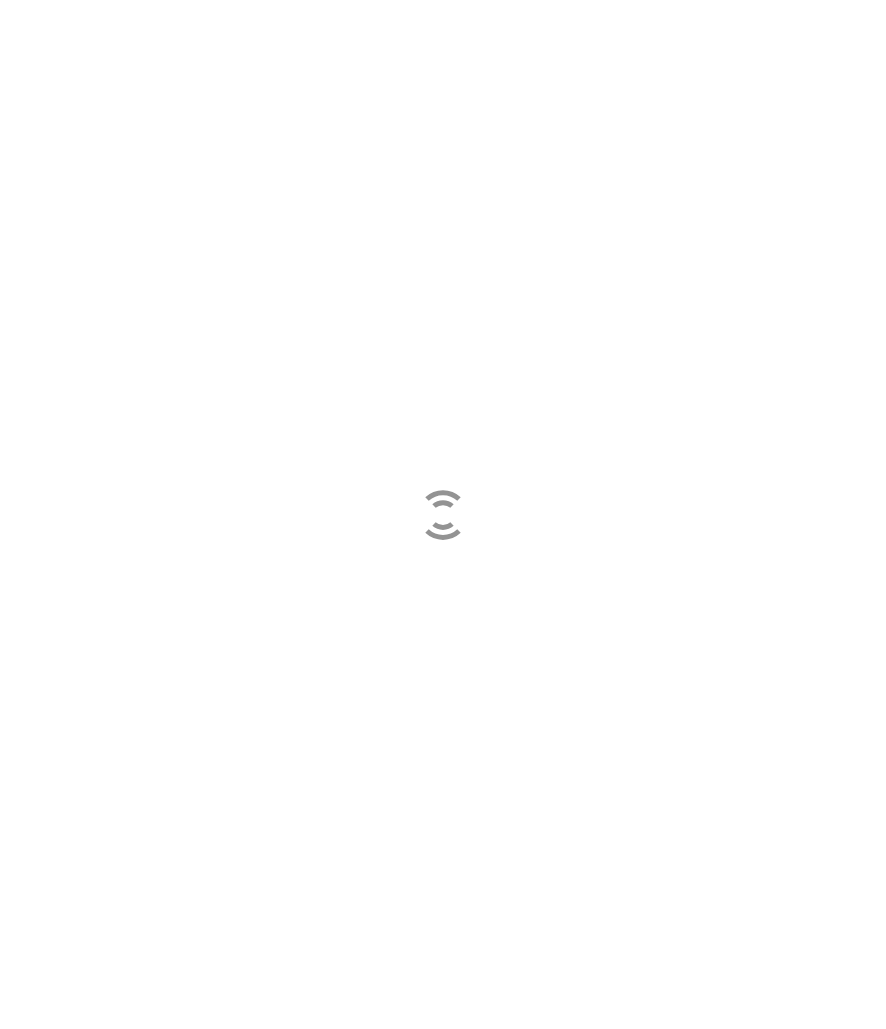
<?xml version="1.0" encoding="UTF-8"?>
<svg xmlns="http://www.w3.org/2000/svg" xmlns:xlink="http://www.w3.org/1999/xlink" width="886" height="1029">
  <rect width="100%" height="100%" fill="#ffffff" />
  <path d="M 427 499 c 9 -8.5 23 -8.5 32 0 m 0 32 c -9 8.5 -23 8.5 -32 0 m 7 -25 c 5 -4.5 13 -4.5 18 0 m 0 18 c -5 4.5 -13 4.5 -18 0" fill="none" stroke="#939393" stroke-width="5" />
</svg>
